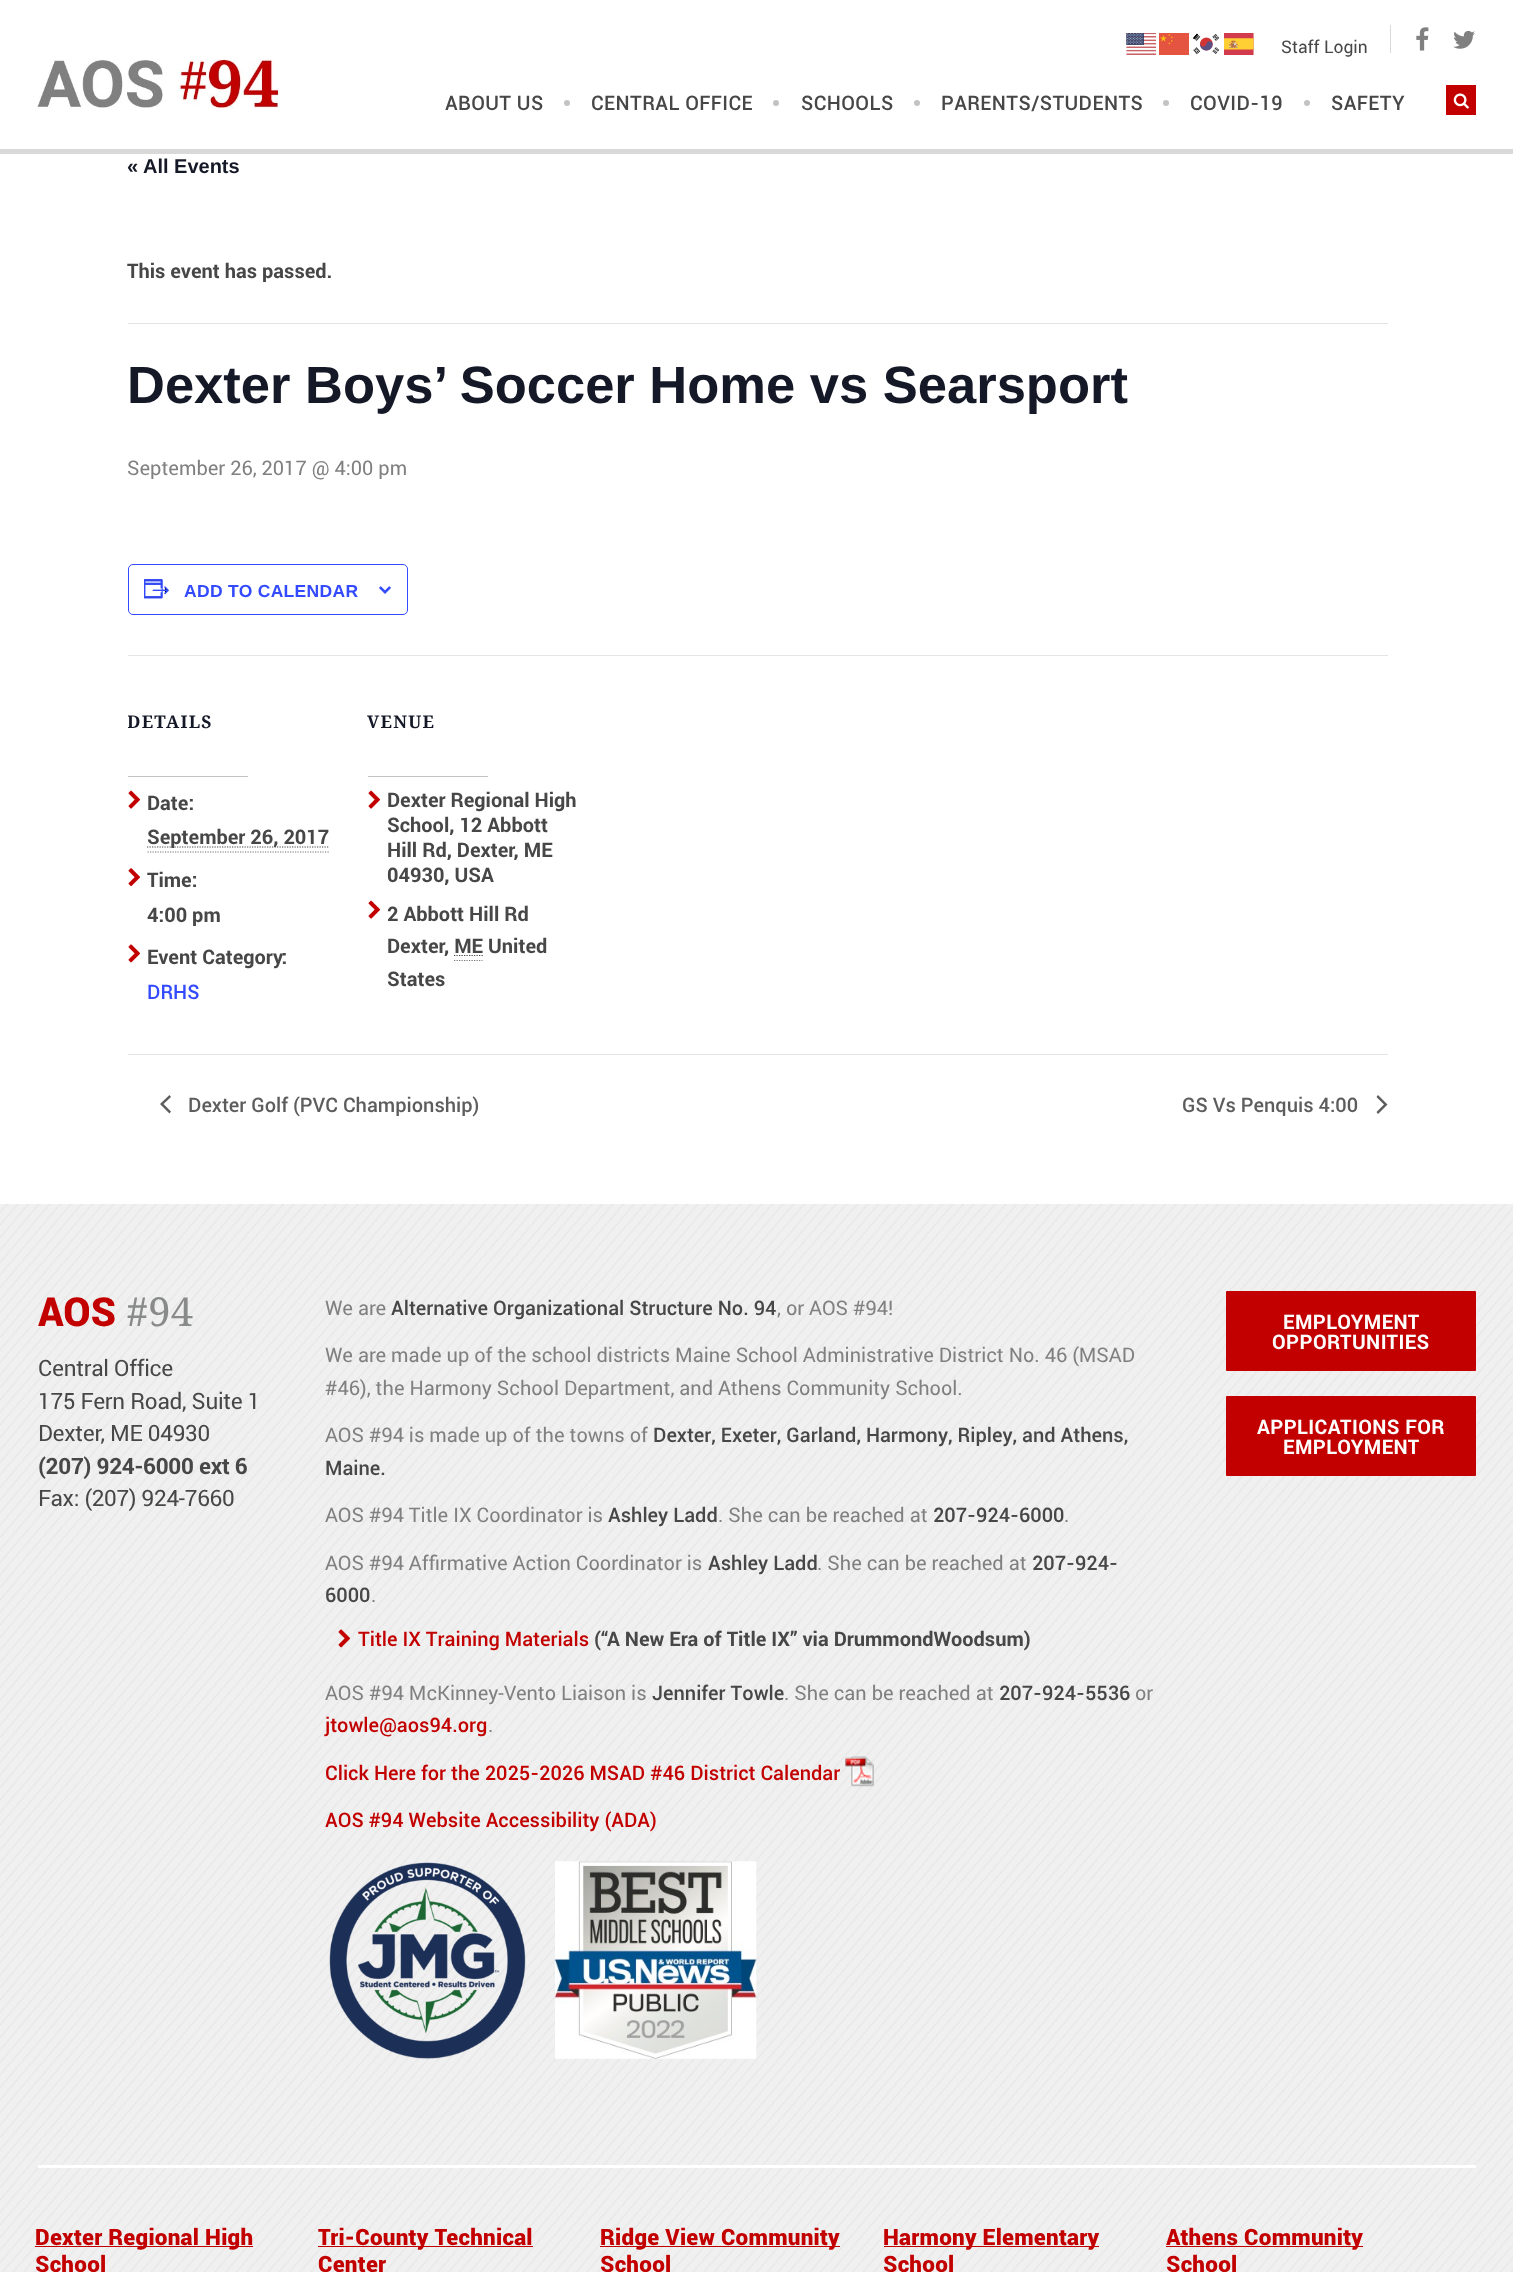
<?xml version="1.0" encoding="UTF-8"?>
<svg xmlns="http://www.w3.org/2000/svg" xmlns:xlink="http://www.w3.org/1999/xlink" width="1513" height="2272">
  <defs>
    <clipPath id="clip1"><rect x="128" y="524" width="1260" height="530" /></clipPath>
  </defs>
  <rect width="100%" height="100%" fill="#ffffff" />
  <rect x="-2.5" y="-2.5" width="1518" height="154" fill="none" stroke="#d9d9d9" stroke-width="5" />
  <image x="37" y="59" width="242" height="50" xlink:href="image1.png" />
  <image x="1126" y="33" width="30" height="22" xlink:href="image2.png" />
  <image x="1159" y="33" width="30" height="22" xlink:href="image3.png" />
  <image x="1193" y="33" width="27" height="22" xlink:href="image4.png" />
  <image x="1224" y="33" width="30" height="22" xlink:href="image5.png" />
  <rect x="1390" y="25" width="1" height="28" fill="#d9d9d9" />
  <image x="1416" y="27" width="13" height="24" xlink:href="image6.png" />
  <image x="1453" y="30" width="22" height="19" xlink:href="image7.png" />
  <circle cx="567" cy="103" r="3" fill="#c3c3c3" />
  <circle cx="776" cy="103" r="3" fill="#c3c3c3" />
  <circle cx="917" cy="103" r="3" fill="#c3c3c3" />
  <circle cx="1166" cy="103" r="3" fill="#c3c3c3" />
  <circle cx="1307" cy="103" r="3" fill="#c3c3c3" />
  <rect x="1446" y="85" width="30" height="30" fill="#c30000" />
  <image x="1453" y="93" width="16" height="16" xlink:href="image8.png" />
  <rect x="128" y="323" width="1260" height="1" fill="#e4e4e4" />
  <rect x="128.5" y="564.5" width="279" height="50" rx="4.5" fill="none" stroke="#334aff" />
  <image x="144" y="579" width="25" height="20" xlink:href="image9.png" />
  <image x="379" y="586" width="12" height="8" xlink:href="image10.png" />
  <rect x="128" y="655" width="1260" height="1" fill="#e4e4e4" />
  <rect x="128" y="776" width="120" height="1" fill="#c3c3c3" />
  <image x="128" y="790" width="12" height="19" xlink:href="image11.png" />
  <path d="M 147.5 852 h 181.5" fill="none" stroke="#777777" stroke-width="1.2" stroke-dasharray="1.25 1.25" />
  <path d="M 147 847 h 182" fill="none" stroke="#474747" stroke-width="1.2" stroke-dasharray="1.25 1.25" />
  <image x="128" y="868" width="12" height="19" xlink:href="image12.png" />
  <image x="128" y="944" width="12" height="19" xlink:href="image13.png" />
  <rect x="368" y="776" width="120" height="1" fill="#c3c3c3" />
  <image x="368" y="790" width="12" height="19" xlink:href="image11.png" />
  <image x="368" y="900" width="12" height="19" xlink:href="image11.png" />
  <path d="M 454 960.5 h 28.5" fill="none" stroke="#777777" stroke-width="1.2" stroke-dasharray="1.25 1.25" />
  <path d="M 454 955.5 h 29" fill="none" stroke="#474747" stroke-width="1.2" stroke-dasharray="1.25 1.25" />
  <rect x="128" y="1054" width="1260" height="1" fill="#e4e4e4" />
  <path d="M 171 1111.5 l -1.5 2 l -9.5 -9.5 l 9.5 -9 l 1.5 2 l -7.5 7 z" fill="#5d5d5d" />
  <path d="M 1376.5 1097 l 1.5 -2 l 9.5 9.5 l -9.5 9.5 l -1.5 -2 l 7.5 -7.5 z" fill="#5d5d5d" />
  <rect y="1204" width="1513" height="1068" fill="#f0f0f0" />
  <image x="0" y="1204" width="1513" height="1068" xlink:href="image14.png" />
  <rect x="38" y="2165" width="1438" height="3" fill="#ffffff" />
  <image x="338" y="1629" width="12" height="19" xlink:href="image15.png" />
  <image x="845" y="1756" width="29" height="31" xlink:href="image16.png" />
  <image x="329" y="1862" width="197" height="197" xlink:href="image17.png" />
  <image x="555" y="1861" width="202" height="198" xlink:href="image18.png" />
  <rect x="1226" y="1291" width="250" height="80" rx="1" fill="#c30000" />
  <rect x="1226" y="1396" width="250" height="80" rx="1" fill="#c30000" />
  <rect x="35" y="2246" width="218" height="1" fill="#c30000" />
  <rect x="318" y="2246" width="215" height="1" fill="#c30000" />
  <rect x="600" y="2246" width="240" height="1" fill="#c30000" />
  <rect x="884" y="2246" width="215" height="1" fill="#c30000" />
  <rect x="1166" y="2246" width="197" height="1" fill="#c30000" />
  <text x="1281" y="53" style="font-family: Roboto; font-size: 17.5px; fill: #474747">Staff Login</text>
  <text x="445" y="110" style="font-family: Roboto; font-size: 20px; font-weight: 500; letter-spacing: 0.4px; fill: #474747">ABOUT US</text>
  <text x="591" y="110" style="font-family: Roboto; font-size: 20px; font-weight: 500; letter-spacing: 0.4px; fill: #474747">CENTRAL OFFICE</text>
  <text x="801" y="110" style="font-family: Roboto; font-size: 20px; font-weight: 500; letter-spacing: 0.4px; fill: #474747">SCHOOLS</text>
  <text x="941" y="110" style="font-family: Roboto; font-size: 20px; font-weight: 500; letter-spacing: 0.4px; fill: #474747">PARENTS/STUDENTS</text>
  <text x="1190" y="110" style="font-family: Roboto; font-size: 20px; font-weight: 500; letter-spacing: 0.4px; fill: #474747">COVID-19</text>
  <text x="1331" y="110" style="font-family: Roboto; font-size: 20px; font-weight: 500; letter-spacing: 0.4px; fill: #474747">SAFETY</text>
  <text x="127" y="173" style="font-family: Liberation Sans; font-size: 20px; font-weight: bold; fill: #141827">« All Events</text>
  <text x="127" y="278" style="font-family: Roboto; font-size: 20px; font-weight: bold; fill: #474747">This event has passed.</text>
  <text x="127" y="403" style="font-family: Liberation Sans; font-size: 52.5px; font-weight: bold; fill: #141827">Dexter Boys’ Soccer Home vs Searsport</text>
  <text x="127" y="475" style="font-family: Roboto; font-size: 20px; fill: #808080">September 26, 2017 @ 4:00 pm</text>
  <text x="184" y="597" style="font-family: Liberation Sans; font-size: 17.5px; font-weight: bold; letter-spacing: 0.3px; fill: #334aff">ADD TO CALENDAR</text>
  <g clip-path="url(#clip1)">
    <text x="127" y="728" style="font-family: Droid Serif; font-size: 17.5px; font-weight: bold; letter-spacing: 1.25px; fill: #141827">DETAILS</text>
  </g>
  <text x="147" y="810" style="font-family: Roboto; font-size: 20px; font-weight: bold; fill: #474747">Date:</text>
  <text x="147" y="844" style="font-family: Roboto; font-size: 20px; font-weight: bold; fill: #474747">September 26, 2017</text>
  <text x="147" y="887" style="font-family: Roboto; font-size: 20px; font-weight: bold; fill: #474747">Time:</text>
  <text x="147" y="922" style="font-family: Roboto; font-size: 20px; font-weight: bold; fill: #474747">4:00 pm</text>
  <text x="147" y="964" style="font-family: Roboto; font-size: 20px; font-weight: bold; fill: #474747">Event Category:</text>
  <text x="147" y="999" style="font-family: Roboto; font-size: 20px; font-weight: 500; fill: #334aff">DRHS</text>
  <text x="367" y="728" style="font-family: Droid Serif; font-size: 17.5px; font-weight: bold; letter-spacing: 1.25px; fill: #141827">VENUE</text>
  <text x="387" y="807" style="font-family: Roboto; font-size: 20px; font-weight: bold; fill: #474747">Dexter Regional High</text>
  <text x="387" y="832" style="font-family: Roboto; font-size: 20px; font-weight: bold; fill: #474747">School, 12 Abbott</text>
  <text x="387" y="857" style="font-family: Roboto; font-size: 20px; font-weight: bold; fill: #474747">Hill Rd, Dexter, ME</text>
  <text x="387" y="882" style="font-family: Roboto; font-size: 20px; font-weight: bold; fill: #474747">04930, USA</text>
  <text x="387" y="921" style="font-family: Roboto; font-size: 20px; font-weight: bold; fill: #474747">2 Abbott Hill Rd</text>
  <text x="387" y="953" style="font-family: Roboto; font-size: 20px; font-weight: bold; fill: #474747">Dexter</text>
  <text x="444" y="953" style="font-family: Roboto; font-size: 20px; font-weight: bold; fill: #474747">, ME United</text>
  <text x="387" y="986" style="font-family: Roboto; font-size: 20px; font-weight: bold; fill: #474747">States</text>
  <text x="188" y="1112" style="font-family: Roboto; font-size: 20px; font-weight: 500; fill: #5d5d5d">Dexter Golf (PVC Championship)</text>
  <text x="1182" y="1112" style="font-family: Roboto; font-size: 20px; font-weight: 500; fill: #5d5d5d">GS Vs Penquis 4:00</text>
  <text x="38" y="1326" style="font-family: Roboto; font-size: 40px; font-weight: 900; fill: #c30000">AOS</text>
  <text x="126" y="1326" style="font-family: Droid Serif; font-size: 40px; fill: #898a8a">#94</text>
  <text x="38" y="1376" style="font-family: Roboto; font-size: 22.5px; letter-spacing: -0.25px; fill: #474747">Central Office</text>
  <text x="38" y="1409" style="font-family: Roboto; font-size: 22.5px; letter-spacing: -0.25px; fill: #474747">175 Fern Road, Suite 1</text>
  <text x="38" y="1441" style="font-family: Roboto; font-size: 22.5px; letter-spacing: -0.25px; fill: #474747">Dexter, ME 04930</text>
  <text x="38" y="1474" style="font-family: Roboto; font-size: 22.5px; font-weight: bold; letter-spacing: -0.25px; fill: #474747">(207) 924-6000 ext 6</text>
  <text x="38" y="1506" style="font-family: Roboto; font-size: 22.5px; letter-spacing: -0.25px; fill: #474747">Fax: (207) 924-7660</text>
  <text x="325" y="1315" style="font-family: Roboto; font-size: 20px; fill: #808080">We are</text>
  <text x="391" y="1315" style="font-family: Roboto; font-size: 20px; font-weight: 500; fill: #474747">Alternative Organizational Structure No. 94</text>
  <text x="777" y="1315" style="font-family: Roboto; font-size: 20px; fill: #808080">, or AOS #94!</text>
  <text x="325" y="1362" style="font-family: Roboto; font-size: 20px; fill: #808080">We are made up of the school districts Maine School Administrative District No. 46 (MSAD</text>
  <text x="325" y="1395" style="font-family: Roboto; font-size: 20px; fill: #808080">#46), the Harmony School Department, and Athens Community School.</text>
  <text x="325" y="1442" style="font-family: Roboto; font-size: 20px; fill: #808080">AOS #94 is made up of the towns of</text>
  <text x="653" y="1442" style="font-family: Roboto; font-size: 20px; font-weight: 500; fill: #474747">Dexter, Exeter, Garland, Harmony, Ripley, and Athens,</text>
  <text x="325" y="1475" style="font-family: Roboto; font-size: 20px; font-weight: 500; fill: #474747">Maine.</text>
  <text x="325" y="1522" style="font-family: Roboto; font-size: 20px; fill: #808080">AOS #94 Title IX Coordinator is</text>
  <text x="608" y="1522" style="font-family: Roboto; font-size: 20px; font-weight: 500; fill: #474747">Ashley Ladd</text>
  <text x="718" y="1522" style="font-family: Roboto; font-size: 20px; fill: #808080">. She can be reached at</text>
  <text x="933" y="1522" style="font-family: Roboto; font-size: 20px; font-weight: 500; fill: #474747">207-924-6000</text>
  <text x="1064" y="1522" style="font-family: Roboto; font-size: 20px; fill: #808080">.</text>
  <text x="325" y="1570" style="font-family: Roboto; font-size: 20px; fill: #808080">AOS #94 Affirmative Action Coordinator is</text>
  <text x="708" y="1570" style="font-family: Roboto; font-size: 20px; font-weight: 500; fill: #474747">Ashley Ladd</text>
  <text x="817" y="1570" style="font-family: Roboto; font-size: 20px; fill: #808080">. She can be reached at</text>
  <text x="1032" y="1570" style="font-family: Roboto; font-size: 20px; font-weight: 500; fill: #474747">207-924-</text>
  <text x="325" y="1602" style="font-family: Roboto; font-size: 20px; font-weight: 500; fill: #474747">6000</text>
  <text x="371" y="1602" style="font-family: Roboto; font-size: 20px; fill: #808080">.</text>
  <text x="358" y="1646" style="font-family: Roboto; font-size: 20px; font-weight: 500; fill: #c30000">Title IX Training Materials</text>
  <text x="594" y="1646" style="font-family: Roboto; font-size: 20px; font-weight: bold; fill: #474747">(“A New Era of Title IX” via DrummondWoodsum)</text>
  <text x="325" y="1700" style="font-family: Roboto; font-size: 20px; fill: #808080">AOS #94 McKinney-Vento Liaison is</text>
  <text x="652" y="1700" style="font-family: Roboto; font-size: 20px; font-weight: 500; fill: #474747">Jennifer Towle</text>
  <text x="784" y="1700" style="font-family: Roboto; font-size: 20px; fill: #808080">. She can be reached at</text>
  <text x="999" y="1700" style="font-family: Roboto; font-size: 20px; font-weight: 500; fill: #474747">207-924-5536</text>
  <text x="1135" y="1700" style="font-family: Roboto; font-size: 20px; fill: #808080">or</text>
  <text x="325" y="1732" style="font-family: Roboto; font-size: 20px; font-weight: 500; fill: #c30000">jtowle@aos94.org</text>
  <text x="488" y="1732" style="font-family: Roboto; font-size: 20px; fill: #808080">.</text>
  <text x="325" y="1780" style="font-family: Roboto; font-size: 20px; font-weight: 500; fill: #c30000">Click Here for the 2025-2026 MSAD #46 District Calendar</text>
  <text x="325" y="1827" style="font-family: Roboto; font-size: 20px; font-weight: 500; fill: #c30000">AOS #94 Website Accessibility (ADA)</text>
  <text x="1283" y="1329" style="font-family: Roboto; font-size: 20px; font-weight: bold; letter-spacing: 0.4px; fill: #ffffff">EMPLOYMENT</text>
  <text x="1272" y="1349" style="font-family: Roboto; font-size: 20px; font-weight: bold; letter-spacing: 0.4px; fill: #ffffff">OPPORTUNITIES</text>
  <text x="1257" y="1434" style="font-family: Roboto; font-size: 20px; font-weight: bold; letter-spacing: 0.4px; fill: #ffffff">APPLICATIONS FOR</text>
  <text x="1283" y="1454" style="font-family: Roboto; font-size: 20px; font-weight: bold; letter-spacing: 0.4px; fill: #ffffff">EMPLOYMENT</text>
  <text x="35" y="2245" style="font-family: Roboto; font-size: 22.5px; font-weight: 900; letter-spacing: 0.25px; fill: #c30000">Dexter Regional High</text>
  <text x="35" y="2272" style="font-family: Roboto; font-size: 22.5px; font-weight: 900; letter-spacing: 0.25px; fill: #c30000">School</text>
  <text x="318" y="2245" style="font-family: Roboto; font-size: 22.5px; font-weight: 900; letter-spacing: 0.25px; fill: #c30000">Tri-County Technical</text>
  <text x="318" y="2272" style="font-family: Roboto; font-size: 22.5px; font-weight: 900; letter-spacing: 0.25px; fill: #c30000">Center</text>
  <text x="600" y="2245" style="font-family: Roboto; font-size: 22.5px; font-weight: 900; letter-spacing: 0.25px; fill: #c30000">Ridge View Community</text>
  <text x="600" y="2272" style="font-family: Roboto; font-size: 22.5px; font-weight: 900; letter-spacing: 0.25px; fill: #c30000">School</text>
  <text x="883" y="2245" style="font-family: Roboto; font-size: 22.5px; font-weight: 900; letter-spacing: 0.25px; fill: #c30000">Harmony Elementary</text>
  <text x="883" y="2272" style="font-family: Roboto; font-size: 22.5px; font-weight: 900; letter-spacing: 0.25px; fill: #c30000">School</text>
  <text x="1166" y="2245" style="font-family: Roboto; font-size: 22.5px; font-weight: 900; letter-spacing: 0.25px; fill: #c30000">Athens Community</text>
  <text x="1166" y="2272" style="font-family: Roboto; font-size: 22.5px; font-weight: 900; letter-spacing: 0.25px; fill: #c30000">School</text>
</svg>
